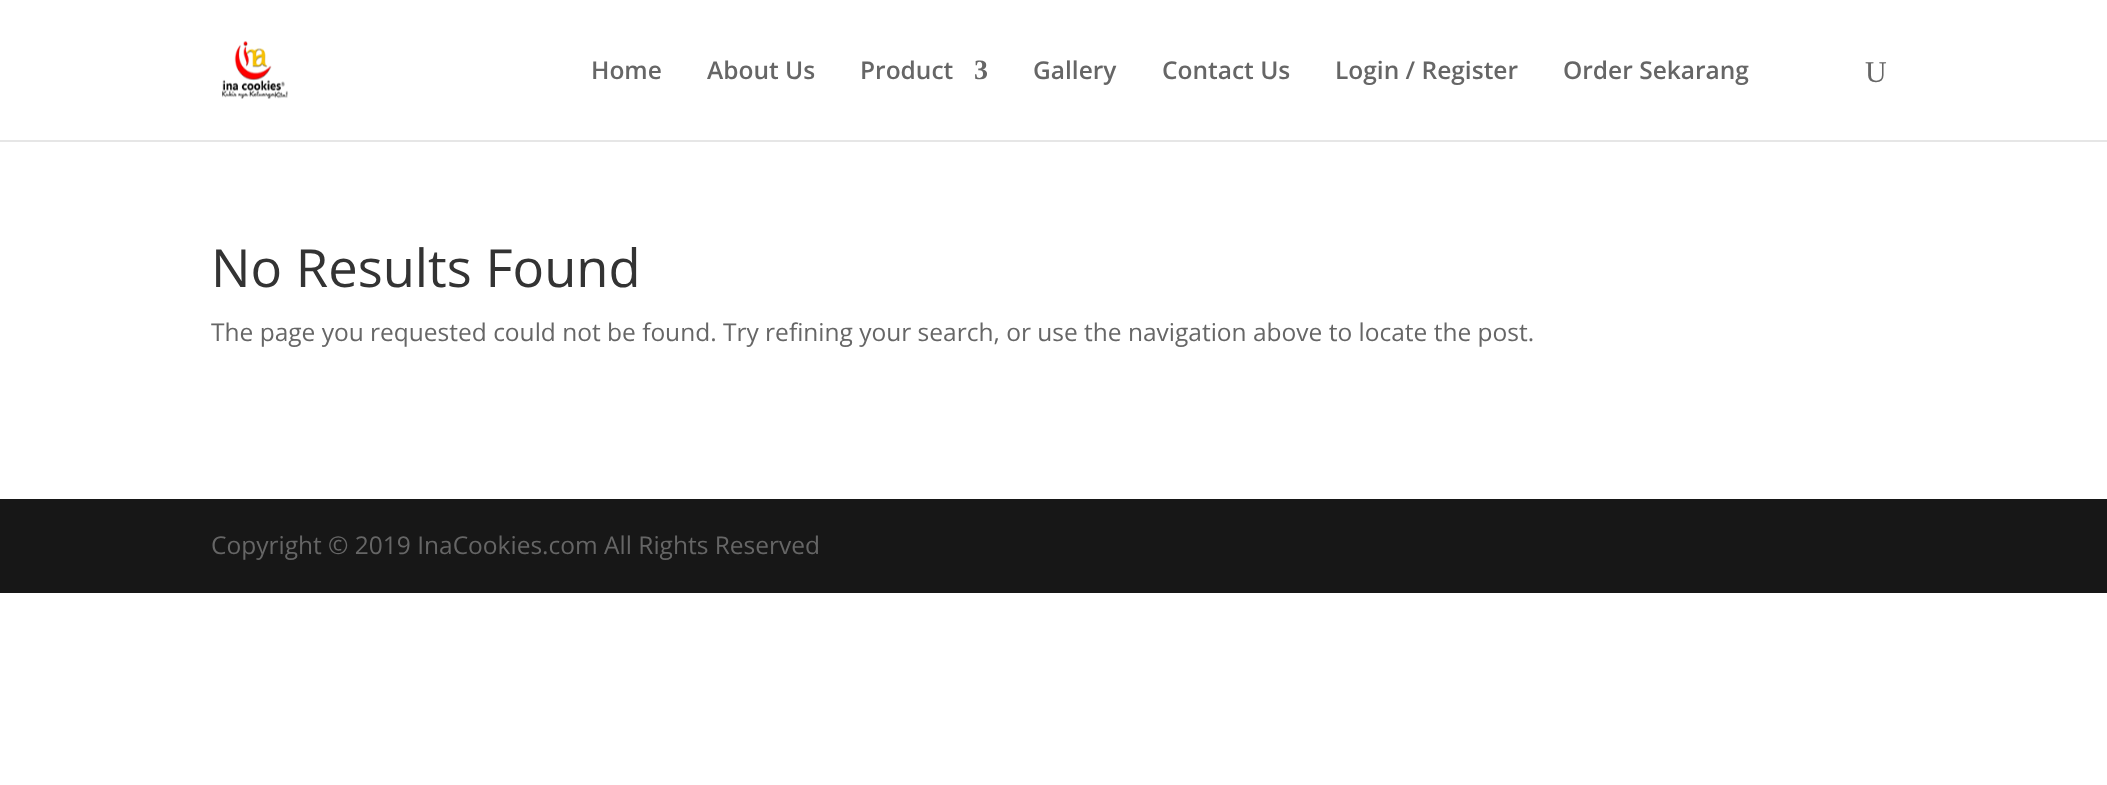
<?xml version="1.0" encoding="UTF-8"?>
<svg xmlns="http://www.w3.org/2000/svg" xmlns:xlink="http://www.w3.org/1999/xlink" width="2107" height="785">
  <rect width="100%" height="100%" fill="#ffffff" />
  <rect y="140" width="2107" height="2" fill="#e6e6e6" />
  <image x="222" y="41" width="66" height="58" xlink:href="image1.png" />
  <rect y="499" width="2107" height="94" fill="#171717" />
  <text x="591" y="79" style="font-family: Open Sans; font-size: 24.5px; font-weight: 600; fill: #666666">Home</text>
  <text x="707" y="79" style="font-family: Open Sans; font-size: 24.5px; font-weight: 600; fill: #666666">About Us</text>
  <text x="860" y="79" style="font-family: Open Sans; font-size: 24.5px; font-weight: 600; fill: #666666">Product</text>
  <text x="974" y="79" style="font-family: Liberation Serif; font-size: 28px; font-weight: bold; fill: #666666">3</text>
  <text x="1033" y="79" style="font-family: Open Sans; font-size: 24.5px; font-weight: 600; fill: #666666">Gallery</text>
  <text x="1162" y="79" style="font-family: Open Sans; font-size: 24.5px; font-weight: 600; fill: #666666">Contact Us</text>
  <text x="1335" y="79" style="font-family: Open Sans; font-size: 24.5px; font-weight: 600; fill: #666666">Login / Register</text>
  <text x="1563" y="79" style="font-family: Open Sans; font-size: 24.5px; font-weight: 600; fill: #666666">Order Sekarang</text>
  <text x="1865" y="82" style="font-family: Liberation Serif; font-size: 30px; fill: #666666">U</text>
  <text x="211" y="287" style="font-family: Open Sans; font-size: 52.5px; fill: #333333">No Results Found</text>
  <text x="211" y="341" style="font-family: Open Sans; font-size: 24.5px; fill: #666666">The page you requested could not be found. Try refining your search, or use the navigation above to locate the post.</text>
  <text x="211" y="554" style="font-family: Open Sans; font-size: 24.5px; fill: #666666">Copyright © 2019 InaCookies.com All Rights Reserved</text>
</svg>
